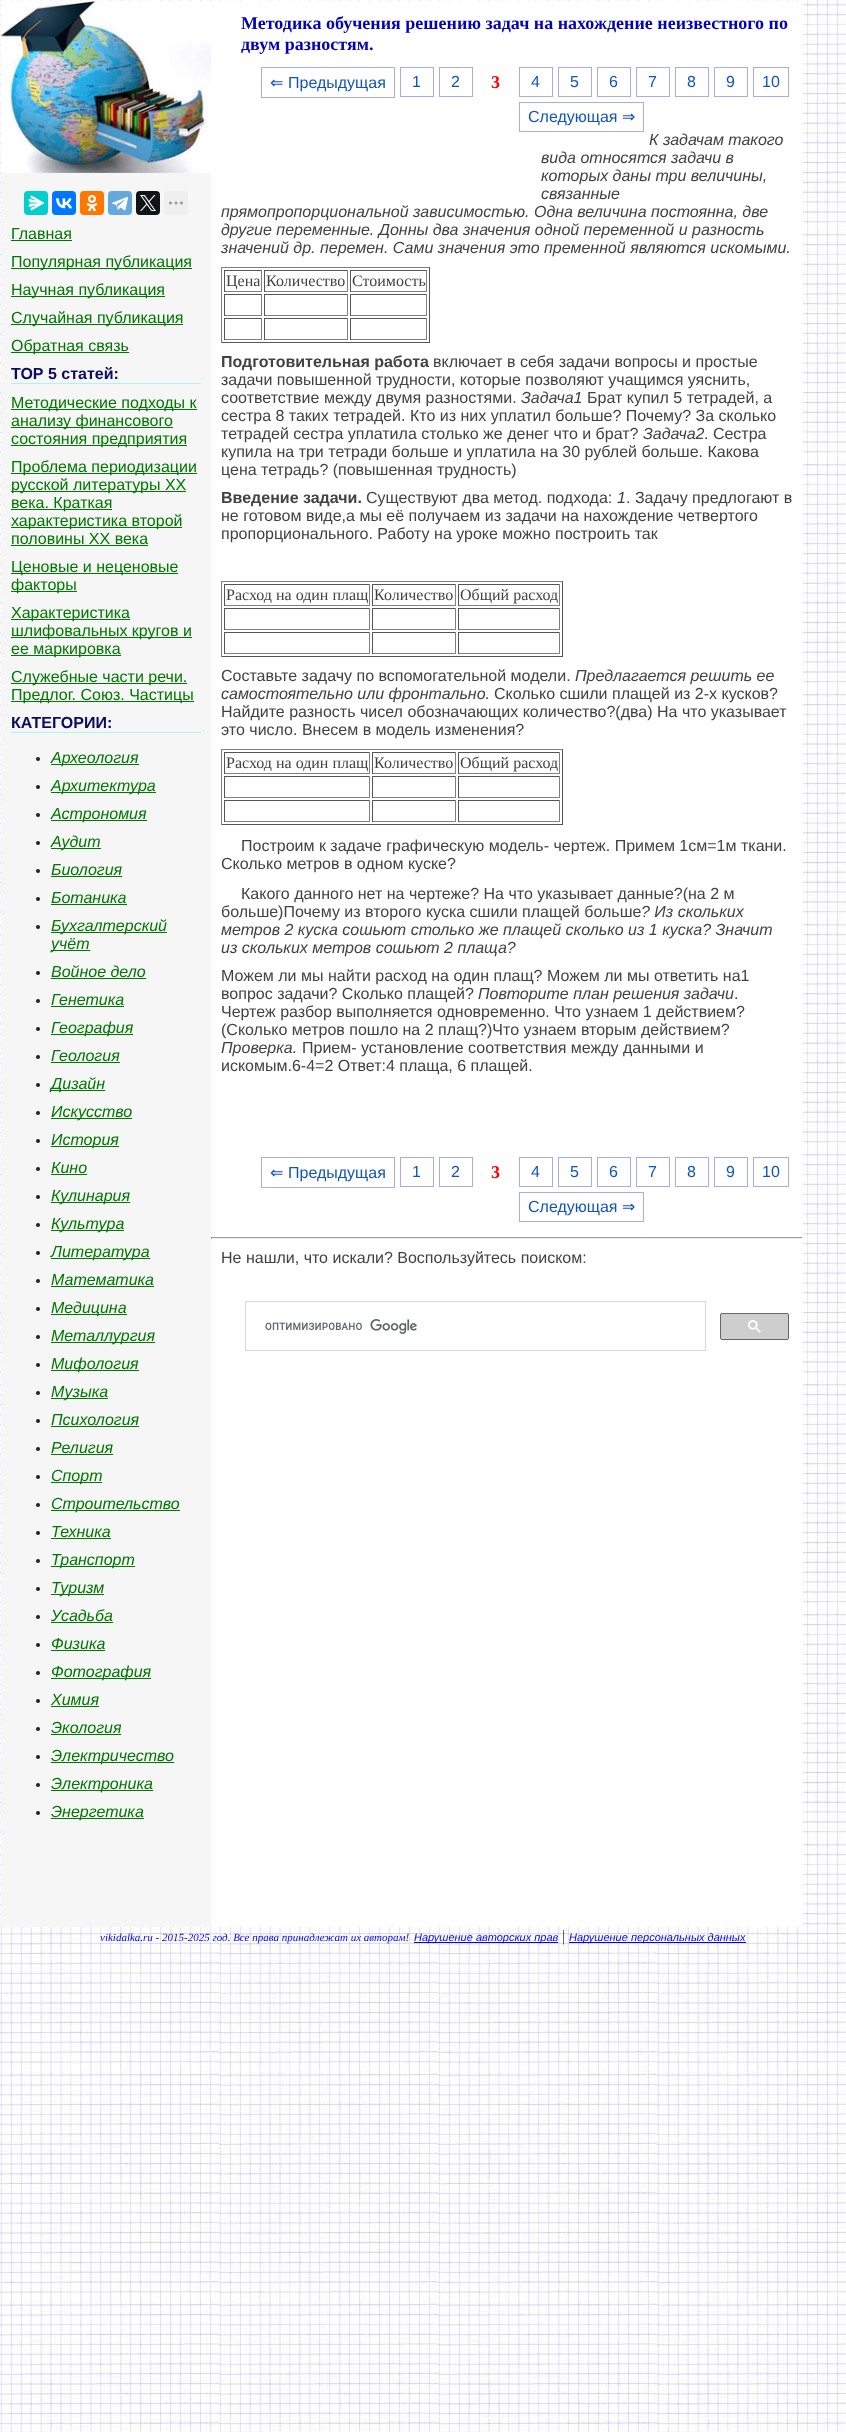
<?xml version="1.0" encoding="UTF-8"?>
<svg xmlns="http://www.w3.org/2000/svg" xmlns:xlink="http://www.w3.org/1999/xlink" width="846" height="2432">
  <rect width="100%" height="100%" fill="#ffffff" />
  <image x="0" y="0" width="846" height="2432" xlink:href="image1.png" />
  <rect x="1" y="173" width="210" height="1754" fill="#f6f6f6" />
  <image x="1" y="1" width="210" height="172" xlink:href="image2.png" />
  <rect x="24" y="191" width="24" height="24" rx="4" fill="#03cece" />
  <image x="28" y="195" width="16" height="16" xlink:href="image3.png" />
  <rect x="52" y="191" width="24" height="24" rx="4" fill="#0077ff" />
  <image x="56" y="198" width="16" height="11" xlink:href="image4.png" />
  <rect x="80" y="191" width="24" height="24" rx="4" fill="#ff7700" />
  <image x="86" y="195" width="12" height="16" xlink:href="image5.png" />
  <rect x="108" y="191" width="24" height="24" rx="4" fill="#64a9dc" />
  <image x="112" y="197" width="16" height="14" xlink:href="image6.png" />
  <rect x="136" y="191" width="24" height="24" rx="4" fill="#0f1419" />
  <image x="140" y="195" width="16" height="16" xlink:href="image7.png" />
  <rect x="164" y="191" width="24" height="24" rx="4" fill="#efefef" />
  <image x="169" y="201" width="14" height="4" xlink:href="image8.png" />
  <rect x="11" y="240" width="61" height="1" fill="#007700" />
  <rect x="11" y="268" width="181" height="1" fill="#007700" />
  <rect x="11" y="296" width="154" height="1" fill="#007700" />
  <rect x="11" y="324" width="172" height="1" fill="#007700" />
  <rect x="11" y="352" width="118" height="1" fill="#007700" />
  <rect x="11" y="383" width="190" height="1" fill="#a9f5f2" />
  <rect x="11" y="409" width="186" height="1" fill="#007700" />
  <rect x="11" y="427" width="162" height="1" fill="#007700" />
  <rect x="11" y="445" width="176" height="1" fill="#007700" />
  <rect x="11" y="473" width="186" height="1" fill="#007700" />
  <rect x="11" y="491" width="175" height="1" fill="#007700" />
  <rect x="11" y="509" width="101" height="1" fill="#007700" />
  <rect x="11" y="527" width="171" height="1" fill="#007700" />
  <rect x="11" y="545" width="137" height="1" fill="#007700" />
  <rect x="11" y="573" width="167" height="1" fill="#007700" />
  <rect x="11" y="591" width="66" height="1" fill="#007700" />
  <rect x="11" y="619" width="119" height="1" fill="#007700" />
  <rect x="11" y="637" width="181" height="1" fill="#007700" />
  <rect x="11" y="655" width="110" height="1" fill="#007700" />
  <rect x="11" y="683" width="176" height="1" fill="#007700" />
  <rect x="11" y="701" width="183" height="1" fill="#007700" />
  <rect x="11" y="732" width="190" height="1" fill="#a9f5f2" />
  <circle cx="38" cy="759" r="2" fill="#222222" />
  <rect x="51" y="764" width="88" height="1" fill="#007700" />
  <circle cx="38" cy="787" r="2" fill="#222222" />
  <rect x="51" y="792" width="105" height="1" fill="#007700" />
  <circle cx="38" cy="815" r="2" fill="#222222" />
  <rect x="51" y="820" width="96" height="1" fill="#007700" />
  <circle cx="38" cy="843" r="2" fill="#222222" />
  <rect x="51" y="848" width="50" height="1" fill="#007700" />
  <circle cx="38" cy="871" r="2" fill="#222222" />
  <rect x="51" y="876" width="71" height="1" fill="#007700" />
  <circle cx="38" cy="899" r="2" fill="#222222" />
  <rect x="51" y="904" width="76" height="1" fill="#007700" />
  <circle cx="38" cy="927" r="2" fill="#222222" />
  <rect x="51" y="932" width="116" height="1" fill="#007700" />
  <rect x="51" y="950" width="39" height="1" fill="#007700" />
  <circle cx="38" cy="973" r="2" fill="#222222" />
  <rect x="51" y="978" width="95" height="1" fill="#007700" />
  <circle cx="38" cy="1001" r="2" fill="#222222" />
  <rect x="51" y="1006" width="73" height="1" fill="#007700" />
  <circle cx="38" cy="1029" r="2" fill="#222222" />
  <rect x="51" y="1034" width="82" height="1" fill="#007700" />
  <circle cx="38" cy="1057" r="2" fill="#222222" />
  <rect x="51" y="1062" width="69" height="1" fill="#007700" />
  <circle cx="38" cy="1085" r="2" fill="#222222" />
  <rect x="51" y="1090" width="54" height="1" fill="#007700" />
  <circle cx="38" cy="1113" r="2" fill="#222222" />
  <rect x="51" y="1118" width="81" height="1" fill="#007700" />
  <circle cx="38" cy="1141" r="2" fill="#222222" />
  <rect x="51" y="1146" width="68" height="1" fill="#007700" />
  <circle cx="38" cy="1169" r="2" fill="#222222" />
  <rect x="51" y="1174" width="36" height="1" fill="#007700" />
  <circle cx="38" cy="1197" r="2" fill="#222222" />
  <rect x="51" y="1202" width="79" height="1" fill="#007700" />
  <circle cx="38" cy="1225" r="2" fill="#222222" />
  <rect x="51" y="1230" width="73" height="1" fill="#007700" />
  <circle cx="38" cy="1253" r="2" fill="#222222" />
  <rect x="51" y="1258" width="99" height="1" fill="#007700" />
  <circle cx="38" cy="1281" r="2" fill="#222222" />
  <rect x="51" y="1286" width="103" height="1" fill="#007700" />
  <circle cx="38" cy="1309" r="2" fill="#222222" />
  <rect x="51" y="1314" width="76" height="1" fill="#007700" />
  <circle cx="38" cy="1337" r="2" fill="#222222" />
  <rect x="51" y="1342" width="104" height="1" fill="#007700" />
  <circle cx="38" cy="1365" r="2" fill="#222222" />
  <rect x="51" y="1370" width="88" height="1" fill="#007700" />
  <circle cx="38" cy="1393" r="2" fill="#222222" />
  <rect x="51" y="1398" width="57" height="1" fill="#007700" />
  <circle cx="38" cy="1421" r="2" fill="#222222" />
  <rect x="51" y="1426" width="88" height="1" fill="#007700" />
  <circle cx="38" cy="1449" r="2" fill="#222222" />
  <rect x="51" y="1454" width="62" height="1" fill="#007700" />
  <circle cx="38" cy="1477" r="2" fill="#222222" />
  <rect x="51" y="1482" width="51" height="1" fill="#007700" />
  <circle cx="38" cy="1505" r="2" fill="#222222" />
  <rect x="51" y="1510" width="129" height="1" fill="#007700" />
  <circle cx="38" cy="1533" r="2" fill="#222222" />
  <rect x="51" y="1538" width="60" height="1" fill="#007700" />
  <circle cx="38" cy="1561" r="2" fill="#222222" />
  <rect x="51" y="1566" width="84" height="1" fill="#007700" />
  <circle cx="38" cy="1589" r="2" fill="#222222" />
  <rect x="51" y="1594" width="53" height="1" fill="#007700" />
  <circle cx="38" cy="1617" r="2" fill="#222222" />
  <rect x="51" y="1622" width="62" height="1" fill="#007700" />
  <circle cx="38" cy="1645" r="2" fill="#222222" />
  <rect x="51" y="1650" width="54" height="1" fill="#007700" />
  <circle cx="38" cy="1673" r="2" fill="#222222" />
  <rect x="51" y="1678" width="100" height="1" fill="#007700" />
  <circle cx="38" cy="1701" r="2" fill="#222222" />
  <rect x="51" y="1706" width="48" height="1" fill="#007700" />
  <circle cx="38" cy="1729" r="2" fill="#222222" />
  <rect x="51" y="1734" width="70" height="1" fill="#007700" />
  <circle cx="38" cy="1757" r="2" fill="#222222" />
  <rect x="51" y="1762" width="123" height="1" fill="#007700" />
  <circle cx="38" cy="1785" r="2" fill="#222222" />
  <rect x="51" y="1790" width="102" height="1" fill="#007700" />
  <circle cx="38" cy="1813" r="2" fill="#222222" />
  <rect x="51" y="1818" width="93" height="1" fill="#007700" />
  <rect x="211" y="1" width="592" height="1926" fill="#ffffff" />
  <rect x="261.5" y="67.5" width="133" height="30" fill="none" stroke="#aaaaee" />
  <rect x="400.5" y="67.5" width="33" height="29" fill="none" stroke="#aaaaee" />
  <rect x="439.5" y="67.5" width="33" height="29" fill="none" stroke="#aaaaee" />
  <rect x="519.5" y="67.5" width="33" height="29" fill="none" stroke="#aaaaee" />
  <rect x="558.5" y="67.5" width="33" height="29" fill="none" stroke="#aaaaee" />
  <rect x="597.5" y="67.5" width="33" height="29" fill="none" stroke="#aaaaee" />
  <rect x="636.5" y="67.5" width="33" height="29" fill="none" stroke="#aaaaee" />
  <rect x="675.5" y="67.5" width="33" height="29" fill="none" stroke="#aaaaee" />
  <rect x="714.5" y="67.5" width="33" height="29" fill="none" stroke="#aaaaee" />
  <rect x="753.5" y="67.5" width="35" height="29" fill="none" stroke="#aaaaee" />
  <rect x="519.5" y="102.5" width="124" height="29" fill="none" stroke="#aaaaee" />
  <rect x="221" y="267" width="209" height="1" fill="#808080" />
  <rect x="429" y="267" width="1" height="76" fill="#555555" />
  <rect x="221" y="342" width="209" height="1" fill="#555555" />
  <rect x="221" y="267" width="1" height="76" fill="#808080" />
  <rect x="224" y="270" width="38" height="1" fill="#555555" />
  <rect x="261" y="270" width="1" height="22" fill="#808080" />
  <rect x="224" y="291" width="38" height="1" fill="#808080" />
  <rect x="224" y="270" width="1" height="22" fill="#555555" />
  <rect x="264" y="270" width="84" height="1" fill="#555555" />
  <rect x="347" y="270" width="1" height="22" fill="#808080" />
  <rect x="264" y="291" width="84" height="1" fill="#808080" />
  <rect x="264" y="270" width="1" height="22" fill="#555555" />
  <rect x="350" y="270" width="77" height="1" fill="#555555" />
  <rect x="426" y="270" width="1" height="22" fill="#808080" />
  <rect x="350" y="291" width="77" height="1" fill="#808080" />
  <rect x="350" y="270" width="1" height="22" fill="#555555" />
  <rect x="224" y="294" width="38" height="1" fill="#555555" />
  <rect x="261" y="294" width="1" height="22" fill="#808080" />
  <rect x="224" y="315" width="38" height="1" fill="#808080" />
  <rect x="224" y="294" width="1" height="22" fill="#555555" />
  <rect x="264" y="294" width="84" height="1" fill="#555555" />
  <rect x="347" y="294" width="1" height="22" fill="#808080" />
  <rect x="264" y="315" width="84" height="1" fill="#808080" />
  <rect x="264" y="294" width="1" height="22" fill="#555555" />
  <rect x="350" y="294" width="77" height="1" fill="#555555" />
  <rect x="426" y="294" width="1" height="22" fill="#808080" />
  <rect x="350" y="315" width="77" height="1" fill="#808080" />
  <rect x="350" y="294" width="1" height="22" fill="#555555" />
  <rect x="224" y="318" width="38" height="1" fill="#555555" />
  <rect x="261" y="318" width="1" height="22" fill="#808080" />
  <rect x="224" y="339" width="38" height="1" fill="#808080" />
  <rect x="224" y="318" width="1" height="22" fill="#555555" />
  <rect x="264" y="318" width="84" height="1" fill="#555555" />
  <rect x="347" y="318" width="1" height="22" fill="#808080" />
  <rect x="264" y="339" width="84" height="1" fill="#808080" />
  <rect x="264" y="318" width="1" height="22" fill="#555555" />
  <rect x="350" y="318" width="77" height="1" fill="#555555" />
  <rect x="426" y="318" width="1" height="22" fill="#808080" />
  <rect x="350" y="339" width="77" height="1" fill="#808080" />
  <rect x="350" y="318" width="1" height="22" fill="#555555" />
  <rect x="221" y="581" width="342" height="1" fill="#808080" />
  <rect x="562" y="581" width="1" height="76" fill="#555555" />
  <rect x="221" y="656" width="342" height="1" fill="#555555" />
  <rect x="221" y="581" width="1" height="76" fill="#808080" />
  <rect x="224" y="584" width="146" height="1" fill="#555555" />
  <rect x="369" y="584" width="1" height="22" fill="#808080" />
  <rect x="224" y="605" width="146" height="1" fill="#808080" />
  <rect x="224" y="584" width="1" height="22" fill="#555555" />
  <rect x="372" y="584" width="84" height="1" fill="#555555" />
  <rect x="455" y="584" width="1" height="22" fill="#808080" />
  <rect x="372" y="605" width="84" height="1" fill="#808080" />
  <rect x="372" y="584" width="1" height="22" fill="#555555" />
  <rect x="458" y="584" width="102" height="1" fill="#555555" />
  <rect x="559" y="584" width="1" height="22" fill="#808080" />
  <rect x="458" y="605" width="102" height="1" fill="#808080" />
  <rect x="458" y="584" width="1" height="22" fill="#555555" />
  <rect x="224" y="608" width="146" height="1" fill="#555555" />
  <rect x="369" y="608" width="1" height="22" fill="#808080" />
  <rect x="224" y="629" width="146" height="1" fill="#808080" />
  <rect x="224" y="608" width="1" height="22" fill="#555555" />
  <rect x="372" y="608" width="84" height="1" fill="#555555" />
  <rect x="455" y="608" width="1" height="22" fill="#808080" />
  <rect x="372" y="629" width="84" height="1" fill="#808080" />
  <rect x="372" y="608" width="1" height="22" fill="#555555" />
  <rect x="458" y="608" width="102" height="1" fill="#555555" />
  <rect x="559" y="608" width="1" height="22" fill="#808080" />
  <rect x="458" y="629" width="102" height="1" fill="#808080" />
  <rect x="458" y="608" width="1" height="22" fill="#555555" />
  <rect x="224" y="632" width="146" height="1" fill="#555555" />
  <rect x="369" y="632" width="1" height="22" fill="#808080" />
  <rect x="224" y="653" width="146" height="1" fill="#808080" />
  <rect x="224" y="632" width="1" height="22" fill="#555555" />
  <rect x="372" y="632" width="84" height="1" fill="#555555" />
  <rect x="455" y="632" width="1" height="22" fill="#808080" />
  <rect x="372" y="653" width="84" height="1" fill="#808080" />
  <rect x="372" y="632" width="1" height="22" fill="#555555" />
  <rect x="458" y="632" width="102" height="1" fill="#555555" />
  <rect x="559" y="632" width="1" height="22" fill="#808080" />
  <rect x="458" y="653" width="102" height="1" fill="#808080" />
  <rect x="458" y="632" width="1" height="22" fill="#555555" />
  <rect x="221" y="749" width="342" height="1" fill="#808080" />
  <rect x="562" y="749" width="1" height="76" fill="#555555" />
  <rect x="221" y="824" width="342" height="1" fill="#555555" />
  <rect x="221" y="749" width="1" height="76" fill="#808080" />
  <rect x="224" y="752" width="146" height="1" fill="#555555" />
  <rect x="369" y="752" width="1" height="22" fill="#808080" />
  <rect x="224" y="773" width="146" height="1" fill="#808080" />
  <rect x="224" y="752" width="1" height="22" fill="#555555" />
  <rect x="372" y="752" width="84" height="1" fill="#555555" />
  <rect x="455" y="752" width="1" height="22" fill="#808080" />
  <rect x="372" y="773" width="84" height="1" fill="#808080" />
  <rect x="372" y="752" width="1" height="22" fill="#555555" />
  <rect x="458" y="752" width="102" height="1" fill="#555555" />
  <rect x="559" y="752" width="1" height="22" fill="#808080" />
  <rect x="458" y="773" width="102" height="1" fill="#808080" />
  <rect x="458" y="752" width="1" height="22" fill="#555555" />
  <rect x="224" y="776" width="146" height="1" fill="#555555" />
  <rect x="369" y="776" width="1" height="22" fill="#808080" />
  <rect x="224" y="797" width="146" height="1" fill="#808080" />
  <rect x="224" y="776" width="1" height="22" fill="#555555" />
  <rect x="372" y="776" width="84" height="1" fill="#555555" />
  <rect x="455" y="776" width="1" height="22" fill="#808080" />
  <rect x="372" y="797" width="84" height="1" fill="#808080" />
  <rect x="372" y="776" width="1" height="22" fill="#555555" />
  <rect x="458" y="776" width="102" height="1" fill="#555555" />
  <rect x="559" y="776" width="1" height="22" fill="#808080" />
  <rect x="458" y="797" width="102" height="1" fill="#808080" />
  <rect x="458" y="776" width="1" height="22" fill="#555555" />
  <rect x="224" y="800" width="146" height="1" fill="#555555" />
  <rect x="369" y="800" width="1" height="22" fill="#808080" />
  <rect x="224" y="821" width="146" height="1" fill="#808080" />
  <rect x="224" y="800" width="1" height="22" fill="#555555" />
  <rect x="372" y="800" width="84" height="1" fill="#555555" />
  <rect x="455" y="800" width="1" height="22" fill="#808080" />
  <rect x="372" y="821" width="84" height="1" fill="#808080" />
  <rect x="372" y="800" width="1" height="22" fill="#555555" />
  <rect x="458" y="800" width="102" height="1" fill="#555555" />
  <rect x="559" y="800" width="1" height="22" fill="#808080" />
  <rect x="458" y="821" width="102" height="1" fill="#808080" />
  <rect x="458" y="800" width="1" height="22" fill="#555555" />
  <rect x="261.5" y="1157.5" width="133" height="30" fill="none" stroke="#aaaaee" />
  <rect x="400.5" y="1157.5" width="33" height="29" fill="none" stroke="#aaaaee" />
  <rect x="439.5" y="1157.5" width="33" height="29" fill="none" stroke="#aaaaee" />
  <rect x="519.5" y="1157.5" width="33" height="29" fill="none" stroke="#aaaaee" />
  <rect x="558.5" y="1157.5" width="33" height="29" fill="none" stroke="#aaaaee" />
  <rect x="597.5" y="1157.5" width="33" height="29" fill="none" stroke="#aaaaee" />
  <rect x="636.5" y="1157.5" width="33" height="29" fill="none" stroke="#aaaaee" />
  <rect x="675.5" y="1157.5" width="33" height="29" fill="none" stroke="#aaaaee" />
  <rect x="714.5" y="1157.5" width="33" height="29" fill="none" stroke="#aaaaee" />
  <rect x="753.5" y="1157.5" width="35" height="29" fill="none" stroke="#aaaaee" />
  <rect x="519.5" y="1192.5" width="124" height="29" fill="none" stroke="#aaaaee" />
  <rect x="211" y="1237" width="592" height="1" fill="#9f9f9f" />
  <rect x="802" y="1237" width="1" height="2" fill="#eeeeee" />
  <rect x="211" y="1238" width="592" height="1" fill="#eeeeee" />
  <rect x="211" y="1237" width="1" height="2" fill="#9f9f9f" />
  <rect x="245.5" y="1301.5" width="460" height="49" fill="none" stroke="#d9d9d9" />
  <image x="265" y="1319" width="152" height="15" xlink:href="image9.png" />
  <rect x="720.5" y="1313.5" width="68" height="26" rx="1.5" fill="#cecece" stroke="#666666" />
  <image x="748" y="1320" width="13" height="13" xlink:href="image10.png" />
  <rect x="414" y="1942" width="144" height="1" fill="#0000ff" />
  <rect x="569" y="1942" width="177" height="1" fill="#0000ff" />
  <text x="11" y="239" style="font-family: Liberation Sans; font-size: 16px; fill: #007700">Главная</text>
  <text x="11" y="267" style="font-family: Liberation Sans; font-size: 16px; fill: #007700">Популярная публикация</text>
  <text x="11" y="295" style="font-family: Liberation Sans; font-size: 16px; fill: #007700">Научная публикация</text>
  <text x="11" y="323" style="font-family: Liberation Sans; font-size: 16px; fill: #007700">Случайная публикация</text>
  <text x="11" y="351" style="font-family: Liberation Sans; font-size: 16px; fill: #007700">Обратная связь</text>
  <text x="11" y="379" style="font-family: Liberation Sans; font-size: 16px; font-weight: bold; fill: #0b0b61">ТОР 5 статей:</text>
  <text x="11" y="408" style="font-family: Liberation Sans; font-size: 16px; fill: #007700">Методические подходы к</text>
  <text x="11" y="426" style="font-family: Liberation Sans; font-size: 16px; fill: #007700">анализу финансового</text>
  <text x="11" y="444" style="font-family: Liberation Sans; font-size: 16px; fill: #007700">состояния предприятия</text>
  <text x="11" y="472" style="font-family: Liberation Sans; font-size: 16px; fill: #007700">Проблема периодизации</text>
  <text x="11" y="490" style="font-family: Liberation Sans; font-size: 16px; fill: #007700">русской литературы ХХ</text>
  <text x="11" y="508" style="font-family: Liberation Sans; font-size: 16px; fill: #007700">века. Краткая</text>
  <text x="11" y="526" style="font-family: Liberation Sans; font-size: 16px; fill: #007700">характеристика второй</text>
  <text x="11" y="544" style="font-family: Liberation Sans; font-size: 16px; fill: #007700">половины ХХ века</text>
  <text x="11" y="572" style="font-family: Liberation Sans; font-size: 16px; fill: #007700">Ценовые и неценовые</text>
  <text x="11" y="590" style="font-family: Liberation Sans; font-size: 16px; fill: #007700">факторы</text>
  <text x="11" y="618" style="font-family: Liberation Sans; font-size: 16px; fill: #007700">Характеристика</text>
  <text x="11" y="636" style="font-family: Liberation Sans; font-size: 16px; fill: #007700">шлифовальных кругов и</text>
  <text x="11" y="654" style="font-family: Liberation Sans; font-size: 16px; fill: #007700">ее маркировка</text>
  <text x="11" y="682" style="font-family: Liberation Sans; font-size: 16px; fill: #007700">Служебные части речи.</text>
  <text x="11" y="700" style="font-family: Liberation Sans; font-size: 16px; fill: #007700">Предлог. Союз. Частицы</text>
  <text x="11" y="728" style="font-family: Liberation Sans; font-size: 16px; font-weight: bold; fill: #0b0b61">КАТЕГОРИИ:</text>
  <text x="51" y="763" style="font-family: Liberation Sans; font-size: 16px; font-style: italic; fill: #007700">Археология</text>
  <text x="51" y="791" style="font-family: Liberation Sans; font-size: 16px; font-style: italic; fill: #007700">Архитектура</text>
  <text x="51" y="819" style="font-family: Liberation Sans; font-size: 16px; font-style: italic; fill: #007700">Астрономия</text>
  <text x="51" y="847" style="font-family: Liberation Sans; font-size: 16px; font-style: italic; fill: #007700">Аудит</text>
  <text x="51" y="875" style="font-family: Liberation Sans; font-size: 16px; font-style: italic; fill: #007700">Биология</text>
  <text x="51" y="903" style="font-family: Liberation Sans; font-size: 16px; font-style: italic; fill: #007700">Ботаника</text>
  <text x="51" y="931" style="font-family: Liberation Sans; font-size: 16px; font-style: italic; fill: #007700">Бухгалтерский</text>
  <text x="51" y="949" style="font-family: Liberation Sans; font-size: 16px; font-style: italic; fill: #007700">учёт</text>
  <text x="51" y="977" style="font-family: Liberation Sans; font-size: 16px; font-style: italic; fill: #007700">Войное дело</text>
  <text x="51" y="1005" style="font-family: Liberation Sans; font-size: 16px; font-style: italic; fill: #007700">Генетика</text>
  <text x="51" y="1033" style="font-family: Liberation Sans; font-size: 16px; font-style: italic; fill: #007700">География</text>
  <text x="51" y="1061" style="font-family: Liberation Sans; font-size: 16px; font-style: italic; fill: #007700">Геология</text>
  <text x="51" y="1089" style="font-family: Liberation Sans; font-size: 16px; font-style: italic; fill: #007700">Дизайн</text>
  <text x="51" y="1117" style="font-family: Liberation Sans; font-size: 16px; font-style: italic; fill: #007700">Искусство</text>
  <text x="51" y="1145" style="font-family: Liberation Sans; font-size: 16px; font-style: italic; fill: #007700">История</text>
  <text x="51" y="1173" style="font-family: Liberation Sans; font-size: 16px; font-style: italic; fill: #007700">Кино</text>
  <text x="51" y="1201" style="font-family: Liberation Sans; font-size: 16px; font-style: italic; fill: #007700">Кулинария</text>
  <text x="51" y="1229" style="font-family: Liberation Sans; font-size: 16px; font-style: italic; fill: #007700">Культура</text>
  <text x="51" y="1257" style="font-family: Liberation Sans; font-size: 16px; font-style: italic; fill: #007700">Литература</text>
  <text x="51" y="1285" style="font-family: Liberation Sans; font-size: 16px; font-style: italic; fill: #007700">Математика</text>
  <text x="51" y="1313" style="font-family: Liberation Sans; font-size: 16px; font-style: italic; fill: #007700">Медицина</text>
  <text x="51" y="1341" style="font-family: Liberation Sans; font-size: 16px; font-style: italic; fill: #007700">Металлургия</text>
  <text x="51" y="1369" style="font-family: Liberation Sans; font-size: 16px; font-style: italic; fill: #007700">Мифология</text>
  <text x="51" y="1397" style="font-family: Liberation Sans; font-size: 16px; font-style: italic; fill: #007700">Музыка</text>
  <text x="51" y="1425" style="font-family: Liberation Sans; font-size: 16px; font-style: italic; fill: #007700">Психология</text>
  <text x="51" y="1453" style="font-family: Liberation Sans; font-size: 16px; font-style: italic; fill: #007700">Религия</text>
  <text x="51" y="1481" style="font-family: Liberation Sans; font-size: 16px; font-style: italic; fill: #007700">Спорт</text>
  <text x="51" y="1509" style="font-family: Liberation Sans; font-size: 16px; font-style: italic; fill: #007700">Строительство</text>
  <text x="51" y="1537" style="font-family: Liberation Sans; font-size: 16px; font-style: italic; fill: #007700">Техника</text>
  <text x="51" y="1565" style="font-family: Liberation Sans; font-size: 16px; font-style: italic; fill: #007700">Транспорт</text>
  <text x="51" y="1593" style="font-family: Liberation Sans; font-size: 16px; font-style: italic; fill: #007700">Туризм</text>
  <text x="51" y="1621" style="font-family: Liberation Sans; font-size: 16px; font-style: italic; fill: #007700">Усадьба</text>
  <text x="51" y="1649" style="font-family: Liberation Sans; font-size: 16px; font-style: italic; fill: #007700">Физика</text>
  <text x="51" y="1677" style="font-family: Liberation Sans; font-size: 16px; font-style: italic; fill: #007700">Фотография</text>
  <text x="51" y="1705" style="font-family: Liberation Sans; font-size: 16px; font-style: italic; fill: #007700">Химия</text>
  <text x="51" y="1733" style="font-family: Liberation Sans; font-size: 16px; font-style: italic; fill: #007700">Экология</text>
  <text x="51" y="1761" style="font-family: Liberation Sans; font-size: 16px; font-style: italic; fill: #007700">Электричество</text>
  <text x="51" y="1789" style="font-family: Liberation Sans; font-size: 16px; font-style: italic; fill: #007700">Электроника</text>
  <text x="51" y="1817" style="font-family: Liberation Sans; font-size: 16px; font-style: italic; fill: #007700">Энергетика</text>
  <text x="241" y="29" style="font-family: Liberation Serif; font-size: 18px; font-weight: bold; fill: #0404b4">Методика обучения решению задач на нахождение неизвестного по</text>
  <text x="241" y="50" style="font-family: Liberation Serif; font-size: 18px; font-weight: bold; fill: #0404b4">двум разностям.</text>
  <text x="270" y="88" style="font-family: DejaVu Sans; font-size: 16px; fill: #1155bb">⇐</text>
  <text x="288" y="88" style="font-family: Liberation Sans; font-size: 16px; fill: #1155bb">Предыдущая</text>
  <text x="412" y="87" style="font-family: Liberation Sans; font-size: 16px; fill: #1155bb">1</text>
  <text x="451" y="87" style="font-family: Liberation Sans; font-size: 16px; fill: #1155bb">2</text>
  <text x="491" y="88" style="font-family: Liberation Serif; font-size: 18px; font-weight: bold; fill: #ff0000">3</text>
  <text x="531" y="87" style="font-family: Liberation Sans; font-size: 16px; fill: #1155bb">4</text>
  <text x="570" y="87" style="font-family: Liberation Sans; font-size: 16px; fill: #1155bb">5</text>
  <text x="609" y="87" style="font-family: Liberation Sans; font-size: 16px; fill: #1155bb">6</text>
  <text x="648" y="87" style="font-family: Liberation Sans; font-size: 16px; fill: #1155bb">7</text>
  <text x="687" y="87" style="font-family: Liberation Sans; font-size: 16px; fill: #1155bb">8</text>
  <text x="726" y="87" style="font-family: Liberation Sans; font-size: 16px; fill: #1155bb">9</text>
  <text x="762" y="87" style="font-family: Liberation Sans; font-size: 16px; fill: #1155bb">10</text>
  <text x="528" y="122" style="font-family: Liberation Sans; font-size: 16px; fill: #1155bb">Следующая</text>
  <text x="622" y="122" style="font-family: DejaVu Sans; font-size: 16px; fill: #1155bb">⇒</text>
  <text x="649" y="145" style="font-family: Liberation Sans; font-size: 16px; font-style: italic; fill: #424242">К задачам такого</text>
  <text x="541" y="163" style="font-family: Liberation Sans; font-size: 16px; font-style: italic; fill: #424242">вида относятся задачи в</text>
  <text x="541" y="181" style="font-family: Liberation Sans; font-size: 16px; font-style: italic; fill: #424242">которых даны три величины,</text>
  <text x="541" y="199" style="font-family: Liberation Sans; font-size: 16px; font-style: italic; fill: #424242">связанные</text>
  <text x="221" y="217" style="font-family: Liberation Sans; font-size: 16px; font-style: italic; fill: #424242">прямопропорциональной зависимостью. Одна величина постоянна, две</text>
  <text x="221" y="235" style="font-family: Liberation Sans; font-size: 16px; font-style: italic; fill: #424242">другие переменные. Донны два значения одной переменной и разность</text>
  <text x="221" y="253" style="font-family: Liberation Sans; font-size: 16px; font-style: italic; fill: #424242">значений др. перемен. Сами значения это пременной являются искомыми.</text>
  <text x="226" y="286" style="font-family: Liberation Serif; font-size: 16px; fill: #424242">Цена</text>
  <text x="266" y="286" style="font-family: Liberation Serif; font-size: 16px; fill: #424242">Количество</text>
  <text x="352" y="286" style="font-family: Liberation Serif; font-size: 16px; fill: #424242">Стоимость</text>
  <text x="221" y="367" style="font-family: Liberation Sans; font-size: 16px; font-weight: bold; fill: #424242">Подготовительная работа</text>
  <text x="433" y="367" style="font-family: Liberation Sans; font-size: 16px; fill: #424242">включает в себя задачи вопросы и простые</text>
  <text x="221" y="385" style="font-family: Liberation Sans; font-size: 16px; fill: #424242">задачи повышенной трудности, которые позволяют учащимся уяснить,</text>
  <text x="221" y="403" style="font-family: Liberation Sans; font-size: 16px; fill: #424242">соответствие между двумя разностями.</text>
  <text x="521" y="403" style="font-family: Liberation Sans; font-size: 16px; font-style: italic; fill: #424242">Задача1</text>
  <text x="587" y="403" style="font-family: Liberation Sans; font-size: 16px; fill: #424242">Брат купил 5 тетрадей, а</text>
  <text x="221" y="421" style="font-family: Liberation Sans; font-size: 16px; fill: #424242">сестра 8 таких тетрадей. Кто из них уплатил больше? Почему? За сколько</text>
  <text x="221" y="439" style="font-family: Liberation Sans; font-size: 16px; fill: #424242">тетрадей сестра уплатила столько же денег что и брат?</text>
  <text x="643" y="439" style="font-family: Liberation Sans; font-size: 16px; font-style: italic; fill: #424242">Задача2</text>
  <text x="704" y="439" style="font-family: Liberation Sans; font-size: 16px; fill: #424242">. Сестра</text>
  <text x="221" y="457" style="font-family: Liberation Sans; font-size: 16px; fill: #424242">купила на три тетради больше и уплатила на 30 рублей больше. Какова</text>
  <text x="221" y="475" style="font-family: Liberation Sans; font-size: 16px; fill: #424242">цена тетрадь? (повышенная трудность)</text>
  <text x="221" y="503" style="font-family: Liberation Sans; font-size: 16px; font-weight: bold; fill: #424242">Введение задачи.</text>
  <text x="366" y="503" style="font-family: Liberation Sans; font-size: 16px; fill: #424242">Существуют два метод. подхода:</text>
  <text x="617" y="503" style="font-family: Liberation Sans; font-size: 16px; font-style: italic; fill: #424242">1</text>
  <text x="626" y="503" style="font-family: Liberation Sans; font-size: 16px; fill: #424242">. Задачу предлогают в</text>
  <text x="221" y="521" style="font-family: Liberation Sans; font-size: 16px; fill: #424242">не готовом виде,а мы её получаем из задачи на нахождение четвертого</text>
  <text x="221" y="539" style="font-family: Liberation Sans; font-size: 16px; fill: #424242">пропорционального. Работу на уроке можно построить так</text>
  <text x="226" y="600" style="font-family: Liberation Serif; font-size: 16px; fill: #424242">Расход на один плащ</text>
  <text x="374" y="600" style="font-family: Liberation Serif; font-size: 16px; fill: #424242">Количество</text>
  <text x="460" y="600" style="font-family: Liberation Serif; font-size: 16px; fill: #424242">Общий расход</text>
  <text x="221" y="681" style="font-family: Liberation Sans; font-size: 16px; fill: #424242">Составьте задачу по вспомогательной модели.</text>
  <text x="575" y="681" style="font-family: Liberation Sans; font-size: 16px; font-style: italic; fill: #424242">Предлагается решить ее</text>
  <text x="221" y="699" style="font-family: Liberation Sans; font-size: 16px; font-style: italic; fill: #424242">самостоятельно или фронтально.</text>
  <text x="494" y="699" style="font-family: Liberation Sans; font-size: 16px; fill: #424242">Сколько сшили плащей из 2-х кусков?</text>
  <text x="221" y="717" style="font-family: Liberation Sans; font-size: 16px; fill: #424242">Найдите разность чисел обозначающих количество?(два) На что указывает</text>
  <text x="221" y="735" style="font-family: Liberation Sans; font-size: 16px; fill: #424242">это число. Внесем в модель изменения?</text>
  <text x="226" y="768" style="font-family: Liberation Serif; font-size: 16px; fill: #424242">Расход на один плащ</text>
  <text x="374" y="768" style="font-family: Liberation Serif; font-size: 16px; fill: #424242">Количество</text>
  <text x="460" y="768" style="font-family: Liberation Serif; font-size: 16px; fill: #424242">Общий расход</text>
  <text x="241" y="851" style="font-family: Liberation Sans; font-size: 16px; fill: #424242">Построим к задаче графическую модель- чертеж. Примем 1см=1м ткани.</text>
  <text x="221" y="869" style="font-family: Liberation Sans; font-size: 16px; fill: #424242">Сколько метров в одном куске?</text>
  <text x="241" y="899" style="font-family: Liberation Sans; font-size: 16px; fill: #424242">Какого данного нет на чертеже? На что указывает данные?(на 2 м</text>
  <text x="221" y="917" style="font-family: Liberation Sans; font-size: 16px; fill: #424242">больше)Почему из второго куска сшили плащей больше</text>
  <text x="641" y="917" style="font-family: Liberation Sans; font-size: 16px; font-style: italic; fill: #424242">? Из скольких</text>
  <text x="221" y="935" style="font-family: Liberation Sans; font-size: 16px; font-style: italic; fill: #424242">метров 2 куска сошьют столько же плащей сколько из 1 куска? Значит</text>
  <text x="221" y="953" style="font-family: Liberation Sans; font-size: 16px; font-style: italic; fill: #424242">из скольких метров сошьют 2 плаща?</text>
  <text x="221" y="981" style="font-family: Liberation Sans; font-size: 16px; fill: #424242">Можем ли мы найти расход на один плащ? Можем ли мы ответить на1</text>
  <text x="221" y="999" style="font-family: Liberation Sans; font-size: 16px; fill: #424242">вопрос задачи? Сколько плащей?</text>
  <text x="478" y="999" style="font-family: Liberation Sans; font-size: 16px; font-style: italic; fill: #424242">Повторите план решения задачи</text>
  <text x="734" y="999" style="font-family: Liberation Sans; font-size: 16px; fill: #424242">.</text>
  <text x="221" y="1017" style="font-family: Liberation Sans; font-size: 16px; fill: #424242">Чертеж разбор выполняется одновременно. Что узнаем 1 действием?</text>
  <text x="221" y="1035" style="font-family: Liberation Sans; font-size: 16px; fill: #424242">(Сколько метров пошло на 2 плащ?)Что узнаем вторым действием?</text>
  <text x="221" y="1053" style="font-family: Liberation Sans; font-size: 16px; font-style: italic; fill: #424242">Проверка.</text>
  <text x="302" y="1053" style="font-family: Liberation Sans; font-size: 16px; fill: #424242">Прием- установление соответствия между данными и</text>
  <text x="221" y="1071" style="font-family: Liberation Sans; font-size: 16px; fill: #424242">искомым.6-4=2 Ответ:4 плаща, 6 плащей.</text>
  <text x="270" y="1178" style="font-family: DejaVu Sans; font-size: 16px; fill: #1155bb">⇐</text>
  <text x="288" y="1178" style="font-family: Liberation Sans; font-size: 16px; fill: #1155bb">Предыдущая</text>
  <text x="412" y="1177" style="font-family: Liberation Sans; font-size: 16px; fill: #1155bb">1</text>
  <text x="451" y="1177" style="font-family: Liberation Sans; font-size: 16px; fill: #1155bb">2</text>
  <text x="491" y="1178" style="font-family: Liberation Serif; font-size: 18px; font-weight: bold; fill: #ff0000">3</text>
  <text x="531" y="1177" style="font-family: Liberation Sans; font-size: 16px; fill: #1155bb">4</text>
  <text x="570" y="1177" style="font-family: Liberation Sans; font-size: 16px; fill: #1155bb">5</text>
  <text x="609" y="1177" style="font-family: Liberation Sans; font-size: 16px; fill: #1155bb">6</text>
  <text x="648" y="1177" style="font-family: Liberation Sans; font-size: 16px; fill: #1155bb">7</text>
  <text x="687" y="1177" style="font-family: Liberation Sans; font-size: 16px; fill: #1155bb">8</text>
  <text x="726" y="1177" style="font-family: Liberation Sans; font-size: 16px; fill: #1155bb">9</text>
  <text x="762" y="1177" style="font-family: Liberation Sans; font-size: 16px; fill: #1155bb">10</text>
  <text x="528" y="1212" style="font-family: Liberation Sans; font-size: 16px; fill: #1155bb">Следующая</text>
  <text x="622" y="1212" style="font-family: DejaVu Sans; font-size: 16px; fill: #1155bb">⇒</text>
  <text x="221" y="1263" style="font-family: Liberation Sans; font-size: 16px; fill: #424242">Не нашли, что искали? Воспользуйтесь поиском:</text>
  <text x="100" y="1941" style="font-family: Liberation Serif; font-size: 11px; font-style: italic; fill: #0000ff">vikidalka.ru - 2015-2025 год. Все права принадлежат их авторам!</text>
  <text x="414" y="1941" style="font-family: Liberation Sans; font-size: 11px; font-style: italic; fill: #0000ff">Нарушение авторских прав</text>
  <text x="562" y="1941" style="font-family: Liberation Serif; font-size: 16px; fill: #424242">|</text>
  <text x="569" y="1941" style="font-family: Liberation Sans; font-size: 11px; font-style: italic; fill: #0000ff">Нарушение персональных данных</text>
</svg>
